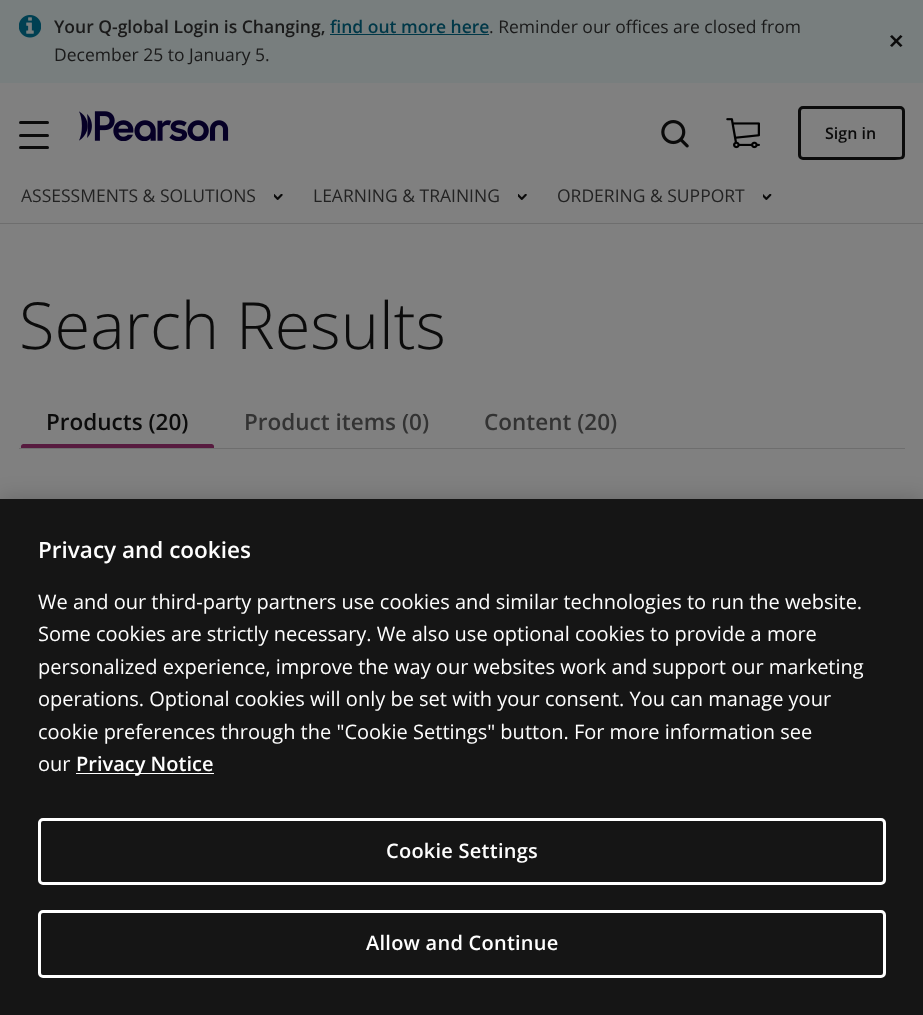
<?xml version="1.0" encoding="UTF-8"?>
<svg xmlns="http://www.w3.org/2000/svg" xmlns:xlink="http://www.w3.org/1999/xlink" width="923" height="1015">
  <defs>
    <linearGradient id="g1" gradientUnits="userSpaceOnUse" x1="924" y1="191" x2="895" y2="191"><stop offset="0.6" stop-color="#808080" /><stop offset="1" stop-color="#808080" stop-opacity="0" /></linearGradient>
    <linearGradient id="g2" gradientUnits="userSpaceOnUse" x1="0" y1="192" x2="23" y2="192"><stop offset="0.6" stop-color="#808080" /><stop offset="1" stop-color="#808080" stop-opacity="0" /></linearGradient>
  </defs>
  <rect width="100%" height="100%" fill="#808080" />
  <rect width="923" height="83" fill="#787e7e" />
  <image x="19" y="15" width="22" height="23" xlink:href="image1.png" />
  <rect x="330" y="34" width="159" height="1" fill="#003848" />
  <path d="M 900.5 35 l 2 1.5 l -10.5 10.5 l -2 -1.5 z" fill="#0b0b0b" />
  <path d="M 890 36.5 l 2 -1.5 l 10.5 10.5 l -2 1.5 z" fill="#0b0b0b" />
  <rect x="19" y="134" width="30" height="3" rx="1.5" fill="#0b0b0b" />
  <rect x="19" y="121" width="30" height="3" rx="1.5" fill="#0b0b0b" />
  <rect x="19" y="146" width="30" height="3" rx="1.5" fill="#0b0b0b" />
  <image x="79" y="111" width="150" height="30" xlink:href="image2.png" />
  <image x="661" y="120" width="28" height="28" xlink:href="image3.png" />
  <image x="726" y="118" width="34" height="31" xlink:href="image4.png" />
  <rect x="799.5" y="107.5" width="104" height="51" rx="3.5" fill="none" stroke="#0b0b0b" stroke-width="3" />
  <rect y="223" width="923" height="1" fill="#6e6e6e" />
  <rect x="895" y="159" width="8" height="1" fill="url(#g1)" />
  <image x="274" y="194" width="9" height="6" xlink:href="image5.png" />
  <image x="518" y="194" width="9" height="6" xlink:href="image6.png" />
  <image x="763" y="194" width="9" height="6" xlink:href="image7.png" />
  <rect x="19" y="448" width="886" height="1" fill="#6e6e6e" />
  <path d="M 23.5 444 h 188 c 1.5 0 2.5 1 2.5 2.5 v 1.5 h -193 v -1.5 c 0 -1.5 1 -2.5 2.5 -2.5 z" fill="#571b3f" />
  <rect y="499" width="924" height="516" fill="#000000" fill-opacity="0.2" filter="blur(11px)" />
  <rect y="499" width="923" height="516" fill="#151515" />
  <rect x="76" y="773" width="138" height="1" fill="#ffffff" />
  <rect x="39.5" y="819.5" width="845" height="64" rx="3.5" fill="none" stroke="#ffffff" stroke-width="3" />
  <rect x="39.5" y="911.5" width="845" height="65" rx="3.5" fill="none" stroke="#ffffff" stroke-width="3" />
  <text x="54" y="33" style="font-family: Open Sans; font-size: 17.5px; font-weight: 600; fill: #1a1a1a">Your Q-global Login is Changing,</text>
  <text x="330" y="33" style="font-family: Open Sans; font-size: 17.5px; font-weight: 600; fill: #003848">find out more here</text>
  <text x="489" y="33" style="font-family: Open Sans; font-size: 17.5px; fill: #1a1a1a">. Reminder our offices are closed from</text>
  <text x="54" y="61" style="font-family: Open Sans; font-size: 17.5px; fill: #1a1a1a">December 25 to January 5.</text>
  <text x="825" y="139" style="font-family: Open Sans; font-size: 16px; font-weight: 600; fill: #0b0b0b">Sign in</text>
  <text x="21" y="202" style="font-family: Open Sans; font-size: 17.5px; fill: #222222">ASSESSMENTS &amp; SOLUTIONS</text>
  <text x="313" y="202" style="font-family: Open Sans; font-size: 17.5px; fill: #222222">LEARNING &amp; TRAINING</text>
  <text x="557" y="202" style="font-family: Open Sans; font-size: 17.5px; fill: #222222">ORDERING &amp; SUPPORT</text>
  <rect x="21" y="199" width="2" height="3" fill="url(#g2)" />
  <text x="19" y="349" style="font-family: Open Sans; font-size: 65px; font-weight: 300; fill: #0b0b0b">Search Results</text>
  <text x="46" y="430" style="font-family: Open Sans; font-size: 22.5px; font-weight: 600; fill: #0b0b0b">Products (20)</text>
  <text x="244" y="430" style="font-family: Open Sans; font-size: 22.5px; font-weight: 600; fill: #333333">Product items (0)</text>
  <text x="484" y="430" style="font-family: Open Sans; font-size: 22.5px; font-weight: 600; fill: #333333">Content (20)</text>
  <text x="38" y="558" style="font-family: Open Sans; font-size: 22.5px; font-weight: 600; fill: #fefefe">Privacy and cookies</text>
  <text x="38" y="609" style="font-family: Open Sans; font-size: 20px; fill: #fefefe">We and our third-party partners use cookies and similar technologies to run the website.</text>
  <text x="38" y="641" style="font-family: Open Sans; font-size: 20px; fill: #fefefe">Some cookies are strictly necessary. We also use optional cookies to provide a more</text>
  <text x="38" y="674" style="font-family: Open Sans; font-size: 20px; fill: #fefefe">personalized experience, improve the way our websites work and support our marketing</text>
  <text x="38" y="706" style="font-family: Open Sans; font-size: 20px; fill: #fefefe">operations. Optional cookies will only be set with your consent. You can manage your</text>
  <text x="38" y="739" style="font-family: Open Sans; font-size: 20px; fill: #fefefe">cookie preferences through the "Cookie Settings" button. For more information see</text>
  <text x="38" y="771" style="font-family: Open Sans; font-size: 20px; fill: #fefefe">our</text>
  <text x="76" y="771" style="font-family: Open Sans; font-size: 20px; font-weight: 600; fill: #fefefe">Privacy Notice</text>
  <text x="386" y="858" style="font-family: Open Sans; font-size: 20px; font-weight: 600; letter-spacing: 0.25px; fill: #fefefe">Cookie Settings</text>
  <text x="366" y="950" style="font-family: Open Sans; font-size: 20px; font-weight: 600; letter-spacing: 0.25px; fill: #fefefe">Allow and Continue</text>
</svg>
